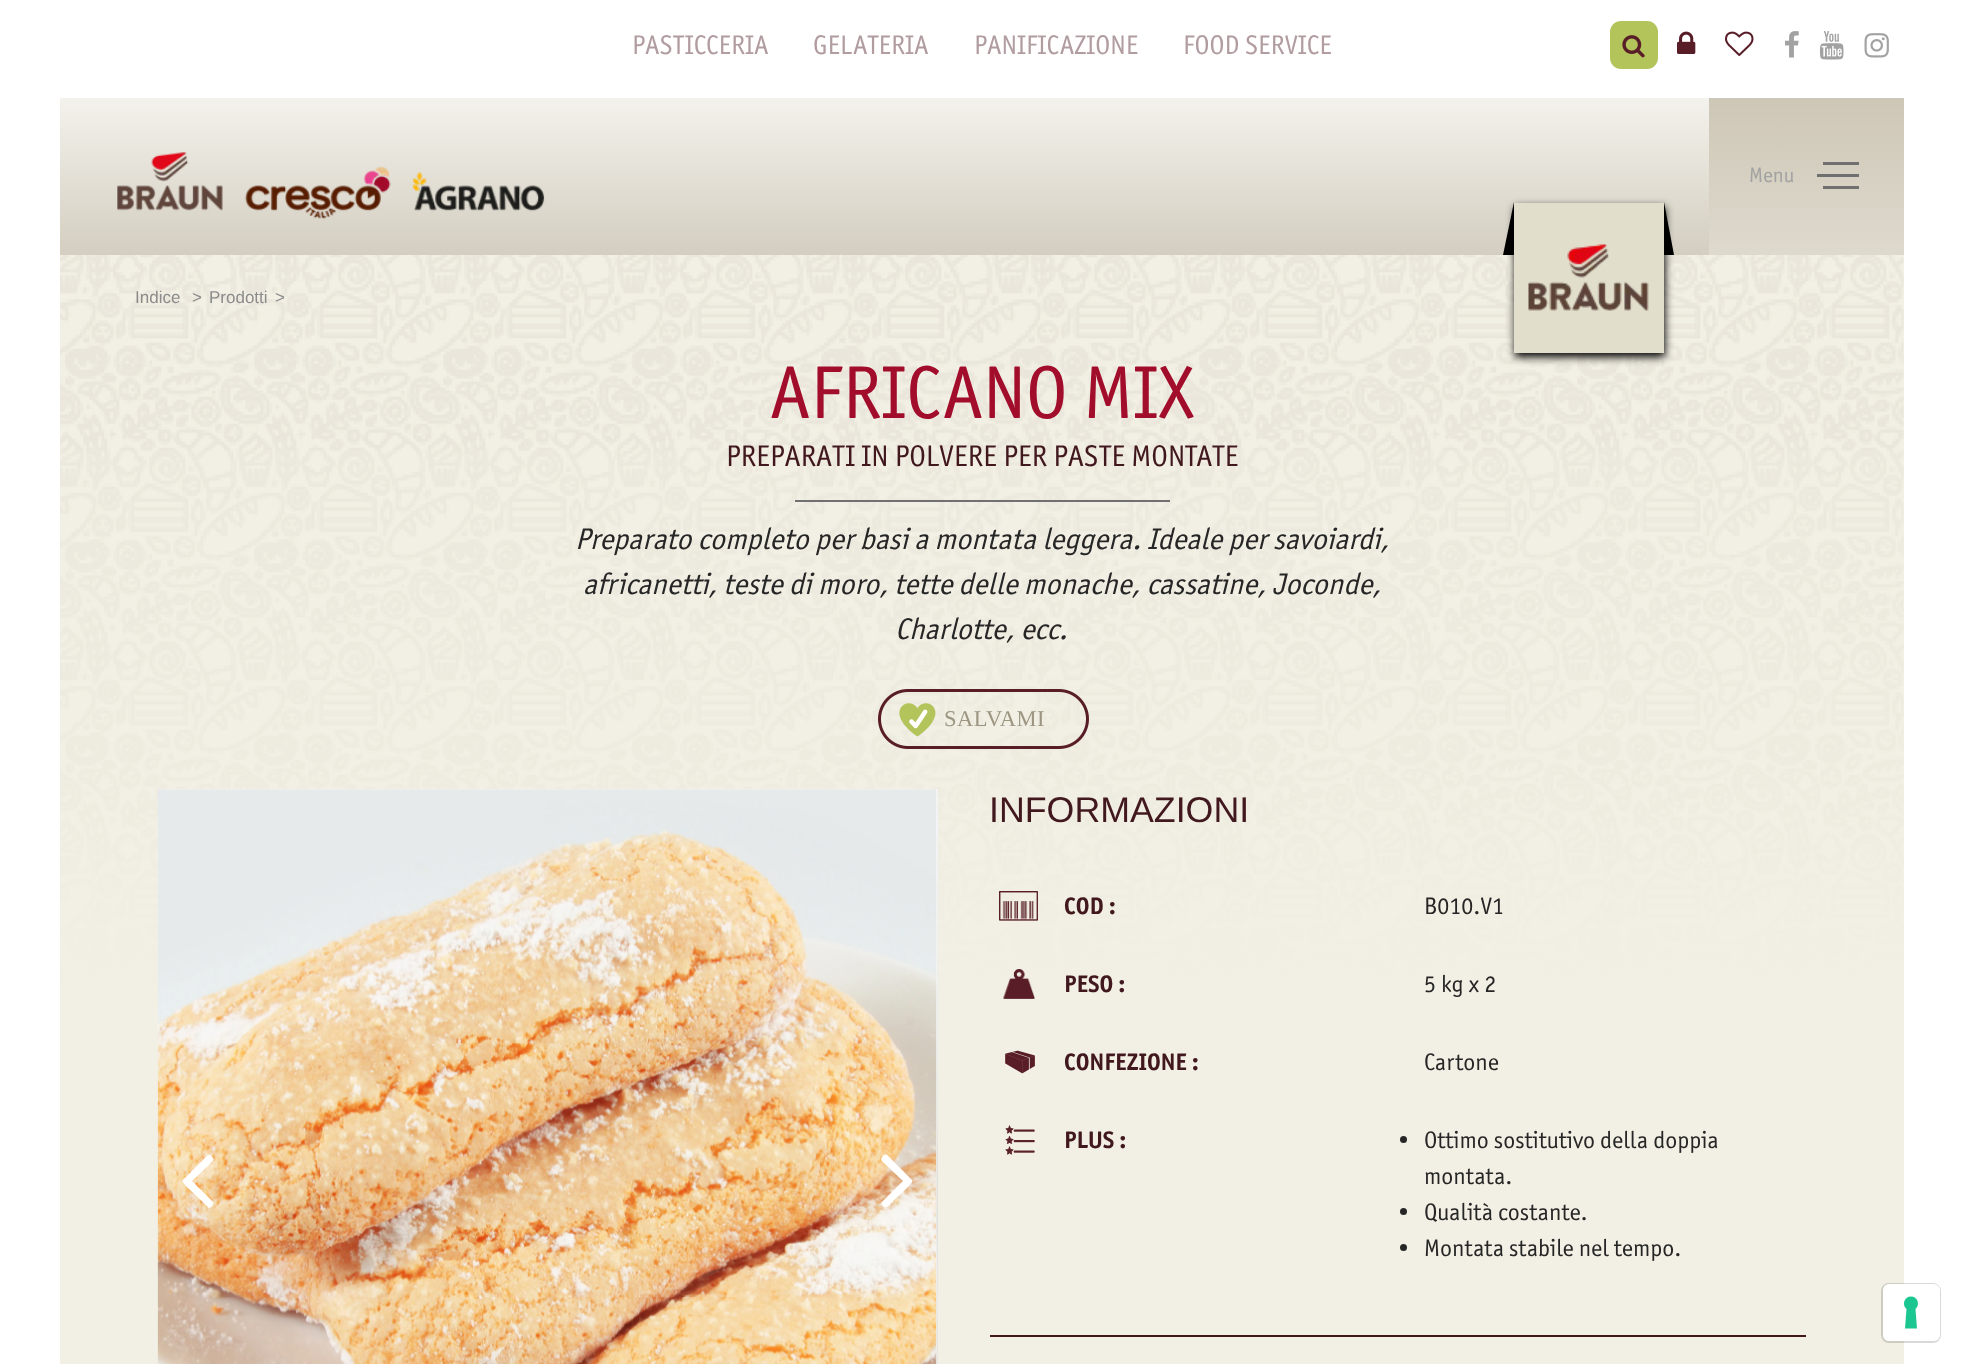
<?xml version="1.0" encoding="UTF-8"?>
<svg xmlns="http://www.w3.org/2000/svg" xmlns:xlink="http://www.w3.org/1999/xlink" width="1963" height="1364">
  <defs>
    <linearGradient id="g1" gradientUnits="userSpaceOnUse" x1="982" y1="97" x2="982" y2="255"><stop offset="0" stop-color="#f4f2ed" /><stop offset="1" stop-color="#d3cec0" /></linearGradient>
    <linearGradient id="g2" gradientUnits="userSpaceOnUse" x1="1806" y1="98" x2="1806" y2="255"><stop offset="0" stop-color="#a79c80" stop-opacity="0.5" /><stop offset="1" stop-color="#e9e5da" stop-opacity="0.5" /></linearGradient>
    <linearGradient id="g3" gradientUnits="userSpaceOnUse" x1="982" y1="255" x2="982" y2="1005"><stop offset="0" stop-color="#f2f0e4" stop-opacity="0" /><stop offset="0.7" stop-color="#f2f0e4" stop-opacity="0.5" /><stop offset="1" stop-color="#f2f0e4" /></linearGradient>
  </defs>
  <rect width="100%" height="100%" fill="#ffffff" />
  <rect x="1610" y="21" width="48" height="48" rx="11" fill="#b3c45b" />
  <image x="1622" y="35" width="23" height="23" xlink:href="image1.png" />
  <image x="1677" y="31" width="19" height="23" xlink:href="image2.png" />
  <image x="1725" y="31" width="29" height="25" xlink:href="image3.png" />
  <image x="1785" y="31" width="14" height="27" xlink:href="image4.png" />
  <image x="1819" y="31" width="25" height="29" xlink:href="image5.png" />
  <image x="1864" y="33" width="25" height="25" xlink:href="image6.png" />
  <rect x="60" y="98" width="1844" height="157" fill="url(#g1)" />
  <rect x="1709" y="98" width="195" height="157" fill="url(#g2)" />
  <image x="117" y="152" width="428" height="67" xlink:href="image7.png" />
  <rect x="1817" y="174" width="42" height="3" fill="#707070" />
  <rect x="1823" y="162" width="36" height="3" fill="#707070" />
  <rect x="1823" y="186" width="36" height="3" fill="#707070" />
  <rect x="60" y="255" width="1844" height="1109" fill="#f2f0e4" />
  <image x="60" y="255" width="1844" height="747" xlink:href="image9.png" />
  <rect x="1515" y="207" width="150" height="150" fill="#000000" filter="blur(4.5px)" />
  <rect x="1514" y="203" width="150" height="150" fill="#e2decc" />
  <path d="M 1514 255 h -11 l 11 -53 z" fill="#000000" />
  <path d="M 1664 255 v -53 l 10 53 z" fill="#000000" />
  <image x="1528" y="244" width="121" height="67" xlink:href="image8.png" />
  <rect x="60" y="450" width="1844" height="552" fill="url(#g3)" />
  <rect x="795" y="500" width="375" height="2" fill="#707070" />
  <rect x="158" y="789" width="780" height="575" fill="#ffffff" />
  <image x="157" y="789" width="780" height="575" xlink:href="image11.png" />
  <image x="936" y="789" width="2" height="575" xlink:href="image12.png" />
  <path d="M 213 1158 c 2 2 -3 5 -3 6 l -18 17 l 18 18 c 3 3 5 4 2 7 c -1 1 -3 3 -4 1 l -21 -20 c -6 -7 -6 -5 0 -11 l 21 -21 c 2 -2 4 2 5 3 z" fill="#ffffff" />
  <path d="M 912 1180 c 2 2 -4 6 -4 7 l -17 16 c 0 0 -4 6 -6 4 c -2 0 -5 -3 -3 -5 l 21 -21 l -18 -17 c -4 -4 -5 -4 -2 -8 c 4 -3 4 -1 8 3 z" fill="#ffffff" />
  <image x="999" y="891" width="39" height="30" xlink:href="image13.png" />
  <image x="1003" y="969" width="32" height="30" xlink:href="image14.png" />
  <image x="1005" y="1050" width="30" height="24" xlink:href="image15.png" />
  <image x="1005" y="1125" width="30" height="30" xlink:href="image16.png" />
  <circle cx="1403.5" cy="1139.5" r="3.5" fill="#262626" />
  <circle cx="1403.5" cy="1211.5" r="3.5" fill="#262626" />
  <circle cx="1403.5" cy="1247.5" r="3.5" fill="#262626" />
  <rect x="990" y="1335" width="816" height="2" fill="#42181f" />
  <rect x="1882" y="1284" width="58" height="58" rx="7" fill="none" stroke="#000000" stroke-opacity="0.15" stroke-width="2" />
  <rect x="1883" y="1284" width="57" height="57" rx="6" fill="#ffffff" />
  <path d="M 1911 1296.5 c 6.5 0 9.5 8 4.5 12.5 l 1.5 19.5 h -12 l 1.5 -19.5 c -5 -4.5 -2 -12.5 4.5 -12.5 z" fill="#1cc691" fill-rule="evenodd" />
  <text x="632" y="54" style="font-family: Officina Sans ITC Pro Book; font-size: 27px; fill: #b19ca0">PASTICCERIA</text>
  <text x="813" y="54" style="font-family: Officina Sans ITC Pro Book; font-size: 27px; fill: #b19ca0">GELATERIA</text>
  <text x="974" y="54" style="font-family: Officina Sans ITC Pro Book; font-size: 27px; fill: #b19ca0">PANIFICAZIONE</text>
  <text x="1183" y="54" style="font-family: Officina Sans ITC Pro Book; font-size: 27px; fill: #b19ca0">FOOD SERVICE</text>
  <text x="1749" y="182" style="font-family: Officina Sans ITC Pro Book; font-size: 21px; fill: #a2a2a2">Menu</text>
  <text x="135" y="303" style="font-family: Liberation Sans; font-size: 17px; fill: #8b8b8b">Indice</text>
  <text x="192" y="303" style="font-family: Liberation Sans; font-size: 17px; fill: #8b8b8b">&gt;</text>
  <text x="209" y="303" style="font-family: Liberation Sans; font-size: 17px; fill: #8b8b8b">Prodotti</text>
  <text x="275" y="303" style="font-family: Liberation Sans; font-size: 17px; fill: #8b8b8b">&gt;</text>
  <text x="770" y="418" style="font-family: Officina Sans ITC Pro Book; font-size: 75px; fill: #a20d2c">AFRICANO MIX</text>
  <text x="726" y="466" style="font-family: Officina Sans ITC Pro Book; font-size: 30px; fill: #42181f">PREPARATI IN POLVERE PER PASTE MONTATE</text>
  <text x="575" y="549" style="font-family: Officina Sans ITC Pro Book; font-size: 30px; font-style: italic; fill: #262626">Preparato completo per basi a montata leggera. Ideale per savoiardi,</text>
  <text x="583" y="594" style="font-family: Officina Sans ITC Pro Book; font-size: 30px; font-style: italic; fill: #262626">africanetti, teste di moro, tette delle monache, cassatine, Joconde,</text>
  <text x="895" y="639" style="font-family: Officina Sans ITC Pro Book; font-size: 30px; font-style: italic; fill: #262626">Charlotte, ecc.</text>
  <text x="944" y="726" style="font-family: Liberation Serif; font-size: 22.5px; letter-spacing: 0.5px; fill: #9c9581">SALVAMI</text>
  <image x="878" y="689" width="211" height="60" xlink:href="image10.png" />
  <text x="989" y="822" style="font-family: Liberation Sans; font-size: 35.75px; fill: #42181f">INFORMAZIONI</text>
  <text x="1064" y="914" style="font-family: Officina Sans ITC Pro Book; font-size: 24px; font-weight: bold; fill: #42181f">COD :</text>
  <text x="1424" y="914" style="font-family: Officina Sans ITC Pro Book; font-size: 24px; fill: #262626">B010.V1</text>
  <text x="1064" y="992" style="font-family: Officina Sans ITC Pro Book; font-size: 24px; font-weight: bold; fill: #42181f">PESO :</text>
  <text x="1424" y="992" style="font-family: Officina Sans ITC Pro Book; font-size: 24px; fill: #262626">5 kg x 2</text>
  <text x="1064" y="1070" style="font-family: Officina Sans ITC Pro Book; font-size: 24px; font-weight: bold; fill: #42181f">CONFEZIONE :</text>
  <text x="1424" y="1070" style="font-family: Officina Sans ITC Pro Book; font-size: 24px; fill: #262626">Cartone</text>
  <text x="1064" y="1148" style="font-family: Officina Sans ITC Pro Book; font-size: 24px; font-weight: bold; fill: #42181f">PLUS :</text>
  <text x="1424" y="1148" style="font-family: Officina Sans ITC Pro Book; font-size: 24px; fill: #262626">Ottimo sostitutivo della doppia</text>
  <text x="1424" y="1184" style="font-family: Officina Sans ITC Pro Book; font-size: 24px; fill: #262626">montata.</text>
  <text x="1424" y="1220" style="font-family: Officina Sans ITC Pro Book; font-size: 24px; fill: #262626">Qualità costante.</text>
  <text x="1424" y="1256" style="font-family: Officina Sans ITC Pro Book; font-size: 24px; fill: #262626">Montata stabile nel tempo.</text>
</svg>
